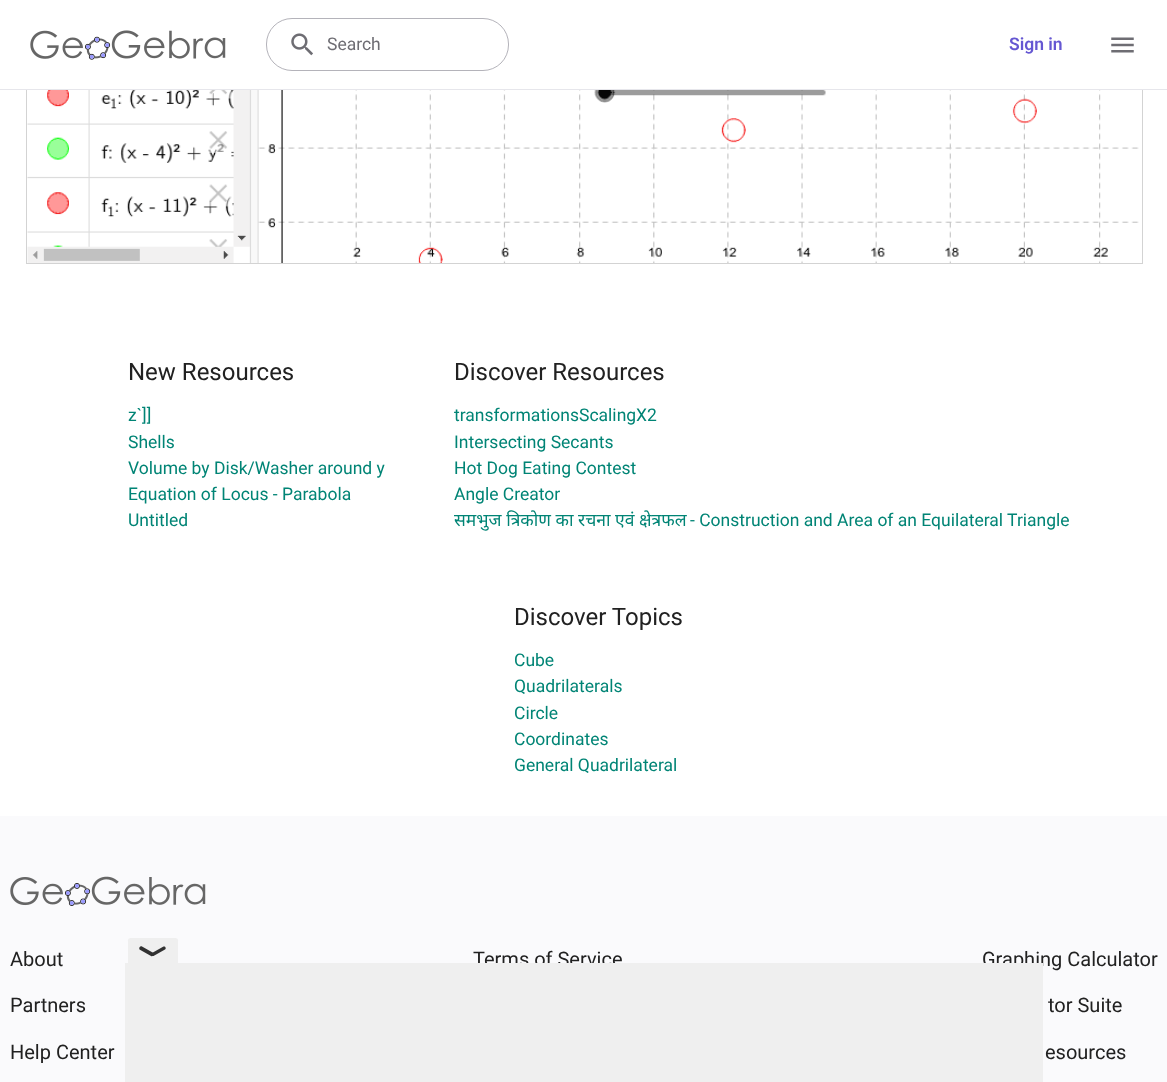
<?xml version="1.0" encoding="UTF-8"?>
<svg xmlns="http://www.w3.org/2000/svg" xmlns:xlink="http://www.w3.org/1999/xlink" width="1167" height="1082">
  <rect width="100%" height="100%" fill="#ffffff" />
  <image x="27" y="90" width="1112" height="173" xlink:href="image4.png" />
  <rect x="26.5" y="-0.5" width="1116" height="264" fill="none" stroke="#d3d3d3" />
  <rect x="26" width="1117" height="89" fill="#ffffff" />
  <rect y="89" width="1167" height="1" fill="#e6e6eb" />
  <image x="30" y="30" width="196" height="30" xlink:href="image1.png" />
  <rect x="266.5" y="18.5" width="242" height="52" rx="25.5" fill="none" stroke="#b4b3ba" />
  <image x="291" y="33" width="22" height="23" xlink:href="image2.png" />
  <image x="1111" y="37" width="23" height="16" xlink:href="image3.png" />
  <rect y="816" width="1167" height="266" fill="#fafafc" />
  <image x="10" y="876" width="196" height="30" xlink:href="image5.png" />
  <path d="M 130.5 938 h 45 c 1.5 0 2.5 1 2.5 2.5 v 22.5 h -50 v -22.5 c 0 -1.5 1 -2.5 2.5 -2.5 z" fill="#efefef" />
  <path d="M 142 946.5 l 11.5 6.5 c 1 2 -1 4 -2.5 3 l -11.5 -6.5 c -1 -2 1 -4 2.5 -3 z" fill="#313131" />
  <path d="M 152 953 l 11.5 -6.5 c 2 -0.5 3 2 1.5 3 l -11.5 6.5 c -2 0.5 -3 -2.5 -1.5 -3 z" fill="#313131" />
  <text x="327" y="50" style="font-family: Roboto; font-size: 17.5px; fill: #6e6d73">Search</text>
  <text x="1009" y="50" style="font-family: Roboto; font-size: 17.5px; font-weight: 600; fill: #6557d2">Sign in</text>
  <text x="128" y="380" style="font-family: Roboto; font-size: 24px; fill: #212121">New Resources</text>
  <text x="128" y="421" style="font-family: Roboto; font-size: 17.5px; fill: #008475">z`]]</text>
  <text x="128" y="448" style="font-family: Roboto; font-size: 17.5px; fill: #008475">Shells</text>
  <text x="128" y="474" style="font-family: Roboto; font-size: 17.5px; fill: #008475">Volume by Disk/Washer around y</text>
  <text x="128" y="500" style="font-family: Roboto; font-size: 17.5px; fill: #008475">Equation of Locus - Parabola</text>
  <text x="128" y="526" style="font-family: Roboto; font-size: 17.5px; fill: #008475">Untitled</text>
  <text x="454" y="380" style="font-family: Roboto; font-size: 24px; fill: #212121">Discover Resources</text>
  <text x="454" y="421" style="font-family: Roboto; font-size: 17.5px; fill: #008475">transformationsScalingX2</text>
  <text x="454" y="448" style="font-family: Roboto; font-size: 17.5px; fill: #008475">Intersecting Secants</text>
  <text x="454" y="474" style="font-family: Roboto; font-size: 17.5px; fill: #008475">Hot Dog Eating Contest</text>
  <text x="454" y="500" style="font-family: Roboto; font-size: 17.5px; fill: #008475">Angle Creator</text>
  <text x="454" y="526" style="font-family: Noto Sans; font-size: 17.5px; fill: #008475">समभुज त्रिकोण का रचना एवं क्षेत्रफल</text>
  <text x="690" y="526" style="font-family: Roboto; font-size: 17.5px; fill: #008475">- Construction and Area of an Equilateral Triangle</text>
  <text x="514" y="625" style="font-family: Roboto; font-size: 24px; fill: #212121">Discover Topics</text>
  <text x="514" y="666" style="font-family: Roboto; font-size: 17.5px; fill: #008475">Cube</text>
  <text x="514" y="692" style="font-family: Roboto; font-size: 17.5px; fill: #008475">Quadrilaterals</text>
  <text x="514" y="719" style="font-family: Roboto; font-size: 17.5px; fill: #008475">Circle</text>
  <text x="514" y="745" style="font-family: Roboto; font-size: 17.5px; fill: #008475">Coordinates</text>
  <text x="514" y="771" style="font-family: Roboto; font-size: 17.5px; fill: #008475">General Quadrilateral</text>
  <text x="10" y="966" style="font-family: Roboto; font-size: 20px; fill: #212121">About</text>
  <text x="10" y="1012" style="font-family: Roboto; font-size: 20px; fill: #212121">Partners</text>
  <text x="10" y="1059" style="font-family: Roboto; font-size: 20px; fill: #212121">Help Center</text>
  <text x="473" y="966" style="font-family: Roboto; font-size: 20px; fill: #212121">Terms of Service</text>
  <text x="982" y="966" style="font-family: Roboto; font-size: 20px; fill: #212121">Graphing Calculator</text>
  <text x="1048" y="1012" style="font-family: Roboto; font-size: 20px; fill: #212121">tor Suite</text>
  <text x="1045" y="1059" style="font-family: Roboto; font-size: 20px; fill: #212121">esources</text>
  <rect x="125" y="963" width="918" height="119" fill="#efefef" />
</svg>
